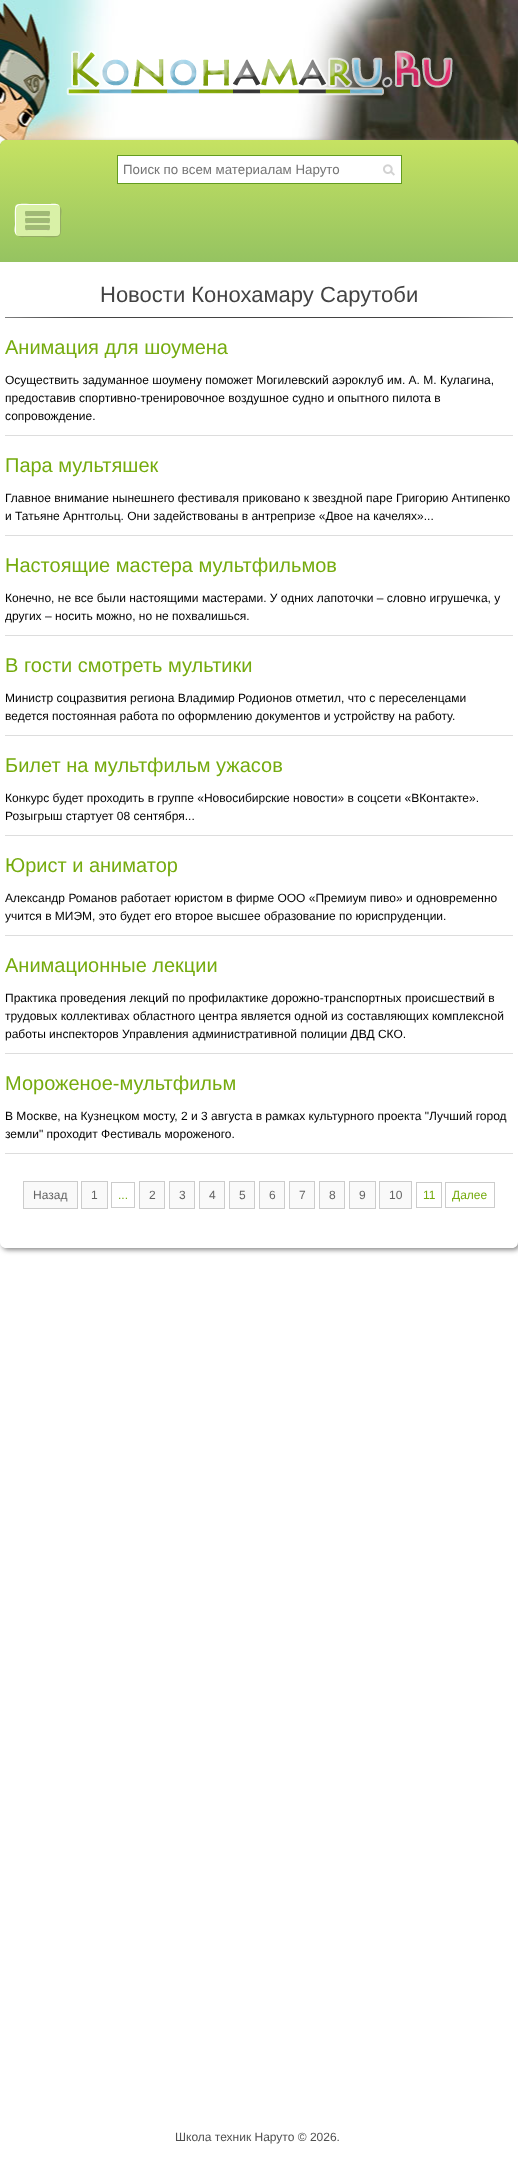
<?xml version="1.0" encoding="UTF-8"?>
<svg xmlns="http://www.w3.org/2000/svg" xmlns:xlink="http://www.w3.org/1999/xlink" width="518" height="2177">
  <defs>
    <linearGradient id="g1" gradientUnits="userSpaceOnUse" x1="259" y1="140" x2="259" y2="262"><stop offset="0" stop-color="#c6e262" /><stop offset="1" stop-color="#95c361" /></linearGradient>
  </defs>
  <rect width="100%" height="100%" fill="#ffffff" />
  <image x="0" y="0" width="518" height="146" xlink:href="image1.png" />
  <image x="66" y="50" width="387" height="46" xlink:href="image2.png" />
  <rect x="2" y="142" width="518" height="1108" rx="6" fill="#898989" filter="blur(2.5px)" />
  <path d="M 6 140 h 506 c 3.5 0 6 2.5 6 6 v 116 h -518 v -116 c 0 -3.5 2.5 -6 6 -6 z" fill="url(#g1)" />
  <rect x="118" y="156" width="283" height="27" fill="#ffffff" />
  <image x="383" y="164" width="12" height="12" xlink:href="image3.png" />
  <rect x="117.5" y="155.5" width="284" height="28" fill="none" stroke="#639c1f" />
  <path d="M 17 235 c 2 3 7 2 9 2 h 12 c 26 0 23 4 23 -20 c 0 -3 2 -9 -2 -11 l 1 2 v 24 c 0 2 -2 4 -4 4 h -37 z" fill="#95ad65" />
  <rect x="15" y="204" width="45" height="32" rx="4" fill="#d9f1a7" />
  <path d="M 20 205 h 37 l 2 1 c -1 -3 -7 -2 -9 -2 h -12 c -26 0 -23 -4 -23 20 c 0 3 -2 9 2 11 l -1 -2 v -24 c 0 -2 2 -4 4 -4 z" fill="#ffffff" />
  <path d="M 25 214 c 0 3 1.5 2 5 2 h 15 c 3.5 0 5 1 5 -2 c 0 0.5 -0.5 1 -1 1 h -23 c -0.5 0 -1 -0.5 -1 -1 z" fill="#a3b57d" />
  <rect x="25" y="211" width="25" height="4" rx="1" fill="#9fba74" />
  <path d="M 25 221 c 0 3 1.5 2 5 2 h 15 c 3.5 0 5 1 5 -2 c 0 0.5 -0.5 1 -1 1 h -23 c -0.5 0 -1 -0.5 -1 -1 z" fill="#a3b57d" />
  <rect x="25" y="218" width="25" height="4" rx="1" fill="#9fba74" />
  <path d="M 25 228 c 0 3 1.5 2 5 2 h 15 c 3.5 0 5 1 5 -2 c 0 0.5 -0.5 1 -1 1 h -23 c -0.5 0 -1 -0.5 -1 -1 z" fill="#a3b57d" />
  <rect x="25" y="225" width="25" height="4" rx="1" fill="#9fba74" />
  <path d="M 0 262 h 518 v 980 c 0 3.5 -2.5 6 -6 6 h -506 c -3.5 0 -6 -2.5 -6 -6 z" fill="#ffffff" />
  <image x="5" y="317" width="508" height="1" xlink:href="image4.png" />
  <rect x="5" y="435" width="508" height="1" fill="#dddddd" />
  <rect x="5" y="535" width="508" height="1" fill="#dddddd" />
  <rect x="5" y="635" width="508" height="1" fill="#dddddd" />
  <rect x="5" y="735" width="508" height="1" fill="#dddddd" />
  <rect x="5" y="835" width="508" height="1" fill="#dddddd" />
  <rect x="5" y="935" width="508" height="1" fill="#dddddd" />
  <rect x="5" y="1053" width="508" height="1" fill="#dddddd" />
  <rect x="5" y="1153" width="508" height="1" fill="#dddddd" />
  <rect x="23.5" y="1181.5" width="54" height="27" fill="#f9f9f9" stroke="#cccccc" />
  <rect x="81.5" y="1181.5" width="26" height="27" fill="#f9f9f9" stroke="#cccccc" />
  <rect x="111.5" y="1182.5" width="23" height="25" fill="none" stroke="#cccccc" />
  <rect x="139.5" y="1181.5" width="25" height="27" fill="#f9f9f9" stroke="#cccccc" />
  <rect x="169.5" y="1181.5" width="25" height="27" fill="#f9f9f9" stroke="#cccccc" />
  <rect x="199.5" y="1181.5" width="25" height="27" fill="#f9f9f9" stroke="#cccccc" />
  <rect x="229.5" y="1181.5" width="25" height="27" fill="#f9f9f9" stroke="#cccccc" />
  <rect x="259.5" y="1181.5" width="25" height="27" fill="#f9f9f9" stroke="#cccccc" />
  <rect x="289.5" y="1181.5" width="25" height="27" fill="#f9f9f9" stroke="#cccccc" />
  <rect x="319.5" y="1181.5" width="25" height="27" fill="#f9f9f9" stroke="#cccccc" />
  <rect x="349.5" y="1181.5" width="26" height="27" fill="#f9f9f9" stroke="#cccccc" />
  <rect x="379.5" y="1181.5" width="32" height="27" fill="#f9f9f9" stroke="#cccccc" />
  <rect x="416.5" y="1182.5" width="25" height="25" fill="none" stroke="#cccccc" />
  <rect x="445.5" y="1182.5" width="49" height="25" fill="none" stroke="#cccccc" />
  <text x="123" y="174" style="font-family: Liberation Sans; font-size: 13.3px; fill: #757575">Поиск по всем материалам Наруто</text>
  <text x="100" y="302" style="font-family: Liberation Sans; font-size: 22px; fill: #434343">Новости Конохамару Сарутоби</text>
  <text x="5" y="354" style="font-family: Liberation Sans; font-size: 20px; fill: #75ab0e">Анимация для шоумена</text>
  <text x="5" y="384" style="font-family: Liberation Sans; font-size: 12px; fill: #000000">Осуществить задуманное шоумену поможет Могилевский аэроклуб им. А. М. Кулагина,</text>
  <text x="5" y="402" style="font-family: Liberation Sans; font-size: 12px; fill: #000000">предоставив спортивно-тренировочное воздушное судно и опытного пилота в</text>
  <text x="5" y="420" style="font-family: Liberation Sans; font-size: 12px; fill: #000000">сопровождение.</text>
  <text x="5" y="472" style="font-family: Liberation Sans; font-size: 20px; fill: #75ab0e">Пара мультяшек</text>
  <text x="5" y="502" style="font-family: Liberation Sans; font-size: 12px; fill: #000000">Главное внимание нынешнего фестиваля приковано к звездной паре Григорию Антипенко</text>
  <text x="5" y="520" style="font-family: Liberation Sans; font-size: 12px; fill: #000000">и Татьяне Арнтгольц. Они задействованы в антрепризе «Двое на качелях»...</text>
  <text x="5" y="572" style="font-family: Liberation Sans; font-size: 20px; fill: #75ab0e">Настоящие мастера мультфильмов</text>
  <text x="5" y="602" style="font-family: Liberation Sans; font-size: 12px; fill: #000000">Конечно, не все были настоящими мастерами. У одних лапоточки – словно игрушечка, у</text>
  <text x="5" y="620" style="font-family: Liberation Sans; font-size: 12px; fill: #000000">других – носить можно, но не похвалишься.</text>
  <text x="5" y="672" style="font-family: Liberation Sans; font-size: 20px; fill: #75ab0e">В гости смотреть мультики</text>
  <text x="5" y="702" style="font-family: Liberation Sans; font-size: 12px; fill: #000000">Министр соцразвития региона Владимир Родионов отметил, что с переселенцами</text>
  <text x="5" y="720" style="font-family: Liberation Sans; font-size: 12px; fill: #000000">ведется постоянная работа по оформлению документов и устройству на работу.</text>
  <text x="5" y="772" style="font-family: Liberation Sans; font-size: 20px; fill: #75ab0e">Билет на мультфильм ужасов</text>
  <text x="5" y="802" style="font-family: Liberation Sans; font-size: 12px; fill: #000000">Конкурс будет проходить в группе «Новосибирские новости» в соцсети «ВКонтакте».</text>
  <text x="5" y="820" style="font-family: Liberation Sans; font-size: 12px; fill: #000000">Розыгрыш стартует 08 сентября...</text>
  <text x="5" y="872" style="font-family: Liberation Sans; font-size: 20px; fill: #75ab0e">Юрист и аниматор</text>
  <text x="5" y="902" style="font-family: Liberation Sans; font-size: 12px; fill: #000000">Александр Романов работает юристом в фирме ООО «Премиум пиво» и одновременно</text>
  <text x="5" y="920" style="font-family: Liberation Sans; font-size: 12px; fill: #000000">учится в МИЭМ, это будет его второе высшее образование по юриспруденции.</text>
  <text x="5" y="972" style="font-family: Liberation Sans; font-size: 20px; fill: #75ab0e">Анимационные лекции</text>
  <text x="5" y="1002" style="font-family: Liberation Sans; font-size: 12px; fill: #000000">Практика проведения лекций по профилактике дорожно-транспортных происшествий в</text>
  <text x="5" y="1020" style="font-family: Liberation Sans; font-size: 12px; fill: #000000">трудовых коллективах областного центра является одной из составляющих комплексной</text>
  <text x="5" y="1038" style="font-family: Liberation Sans; font-size: 12px; fill: #000000">работы инспекторов Управления административной полиции ДВД СКО.</text>
  <text x="5" y="1090" style="font-family: Liberation Sans; font-size: 20px; fill: #75ab0e">Мороженое-мультфильм</text>
  <text x="5" y="1120" style="font-family: Liberation Sans; font-size: 12px; fill: #000000">В Москве, на Кузнецком мосту, 2 и 3 августа в рамках культурного проекта "Лучший город</text>
  <text x="5" y="1138" style="font-family: Liberation Sans; font-size: 12px; fill: #000000">земли" проходит Фестиваль мороженого.</text>
  <text x="33" y="1199" style="font-family: Liberation Sans; font-size: 12px; fill: #636363">Назад</text>
  <text x="91" y="1199" style="font-family: Liberation Sans; font-size: 12px; fill: #636363">1</text>
  <text x="118" y="1199" style="font-family: Liberation Sans; font-size: 12px; fill: #75ab0e">...</text>
  <text x="149" y="1199" style="font-family: Liberation Sans; font-size: 12px; fill: #636363">2</text>
  <text x="179" y="1199" style="font-family: Liberation Sans; font-size: 12px; fill: #636363">3</text>
  <text x="209" y="1199" style="font-family: Liberation Sans; font-size: 12px; fill: #636363">4</text>
  <text x="239" y="1199" style="font-family: Liberation Sans; font-size: 12px; fill: #636363">5</text>
  <text x="269" y="1199" style="font-family: Liberation Sans; font-size: 12px; fill: #636363">6</text>
  <text x="299" y="1199" style="font-family: Liberation Sans; font-size: 12px; fill: #636363">7</text>
  <text x="329" y="1199" style="font-family: Liberation Sans; font-size: 12px; fill: #636363">8</text>
  <text x="359" y="1199" style="font-family: Liberation Sans; font-size: 12px; fill: #636363">9</text>
  <text x="389" y="1199" style="font-family: Liberation Sans; font-size: 12px; fill: #636363">10</text>
  <text x="423" y="1199" style="font-family: Liberation Sans; font-size: 12px; fill: #75ab0e">11</text>
  <text x="452" y="1199" style="font-family: Liberation Sans; font-size: 12px; fill: #75ab0e">Далее</text>
  <text x="175" y="2141" style="font-family: Liberation Sans; font-size: 12px; fill: #505050">Школа техник Наруто © 2026.</text>
</svg>
